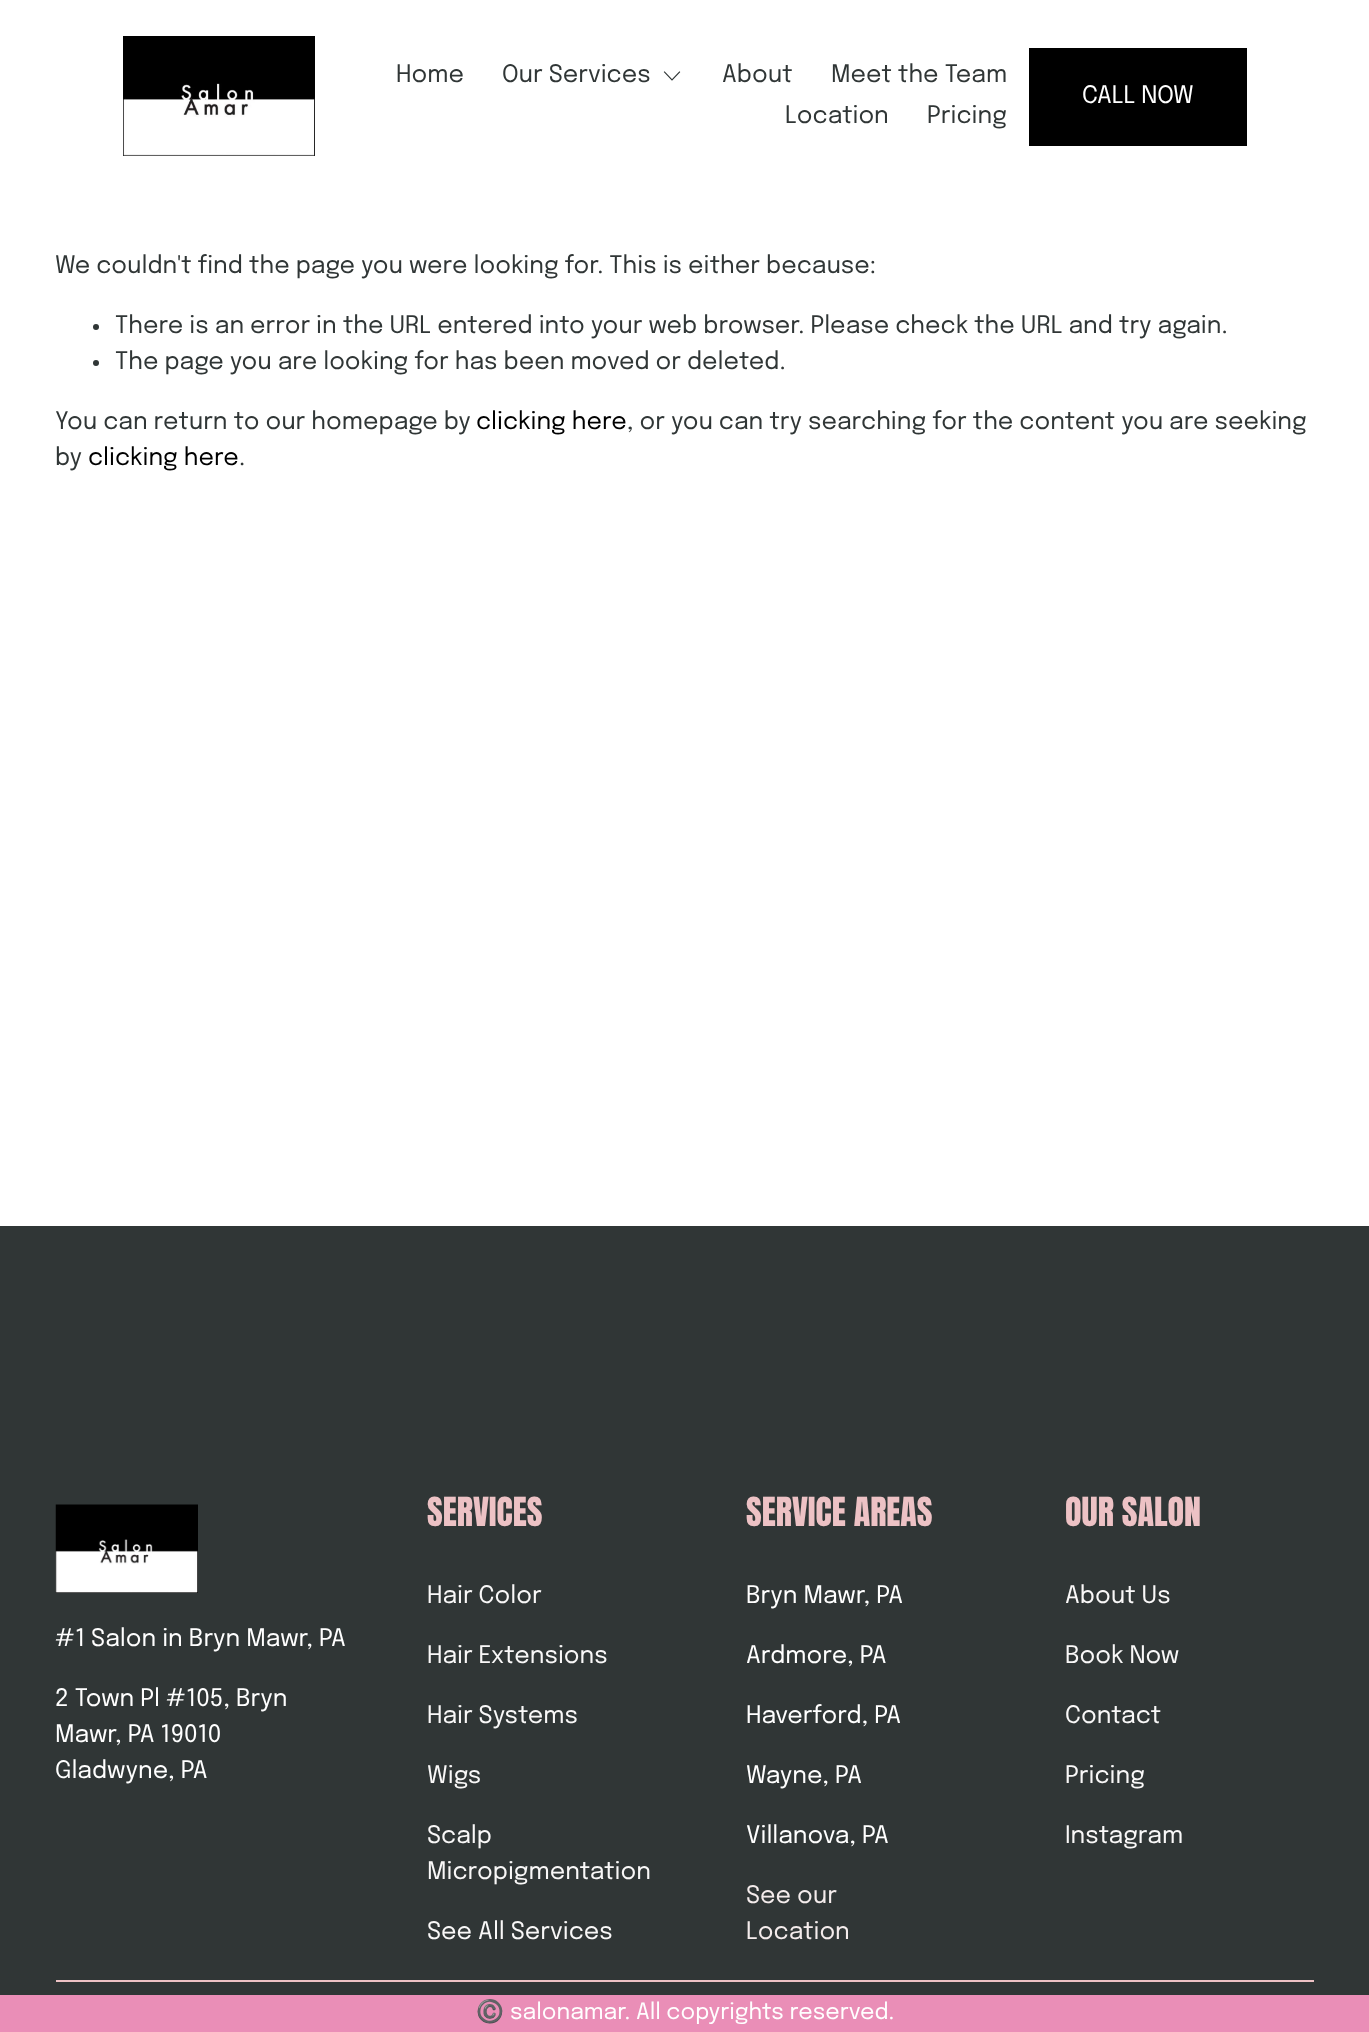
<?xml version="1.0" encoding="UTF-8"?>
<svg xmlns="http://www.w3.org/2000/svg" xmlns:xlink="http://www.w3.org/1999/xlink" width="1369" height="2032">
  <rect width="100%" height="100%" fill="#ffffff" />
  <image x="123" y="36" width="192" height="120" xlink:href="image1.png" />
  <path d="M 679.5 72 l -7.5 8 l -7.5 -8" fill="none" stroke="#303636" stroke-width="1.1" stroke-linecap="square" />
  <rect x="1029" y="48" width="218" height="98" fill="#000000" />
  <circle cx="96" cy="327" r="3" fill="#303636" />
  <circle cx="96" cy="363" r="3" fill="#303636" />
  <rect y="1226" width="1369" height="769" fill="#303636" />
  <image x="55" y="1504" width="143" height="89" xlink:href="image2.png" />
  <rect x="56" y="1980" width="1258" height="2" fill="#edc2c5" />
  <rect y="1995" width="1369" height="37" fill="#ea8eb7" />
  <text x="396" y="82" style="font-family: Epilogue; font-size: 24px; fill: #303636">Home</text>
  <text x="502" y="82" style="font-family: Epilogue; font-size: 24px; fill: #303636">Our Services</text>
  <text x="722" y="82" style="font-family: Epilogue; font-size: 24px; fill: #303636">About</text>
  <text x="831" y="82" style="font-family: Epilogue; font-size: 24px; fill: #303636">Meet the Team</text>
  <text x="785" y="123" style="font-family: Epilogue; font-size: 24px; fill: #303636">Location</text>
  <text x="927" y="123" style="font-family: Epilogue; font-size: 24px; fill: #303636">Pricing</text>
  <text x="1082" y="103" style="font-family: Epilogue; font-size: 24px; fill: #ffffff">CALL NOW</text>
  <text x="55" y="273" style="font-family: Epilogue; font-size: 24px; fill: #303636">We couldn't find the page you were looking for. This is either because:</text>
  <text x="115" y="333" style="font-family: Epilogue; font-size: 24px; fill: #303636">There is an error in the URL entered into your web browser. Please check the URL and try again.</text>
  <text x="115" y="369" style="font-family: Epilogue; font-size: 24px; fill: #303636">The page you are looking for has been moved or deleted.</text>
  <text x="55" y="429" style="font-family: Epilogue; font-size: 24px; fill: #303636">You can return to our homepage by</text>
  <text x="476" y="429" style="font-family: Epilogue; font-size: 24px; fill: #000000">clicking here</text>
  <text x="627" y="429" style="font-family: Epilogue; font-size: 24px; fill: #303636">, or you can try searching for the content you are seeking</text>
  <text x="55" y="465" style="font-family: Epilogue; font-size: 24px; fill: #303636">by</text>
  <text x="88" y="465" style="font-family: Epilogue; font-size: 24px; fill: #000000">clicking here</text>
  <text x="239" y="465" style="font-family: Epilogue; font-size: 24px; fill: #303636">.</text>
  <text x="427" y="1526" style="font-family: Anton; font-size: 34px; fill: #edc2c5">SERVICES</text>
  <text x="427" y="1603" style="font-family: Epilogue; font-size: 24px; fill: #f9f8f8">Hair Color</text>
  <text x="427" y="1663" style="font-family: Epilogue; font-size: 24px; fill: #f9f8f8">Hair Extensions</text>
  <text x="427" y="1723" style="font-family: Epilogue; font-size: 24px; fill: #f9f8f8">Hair Systems</text>
  <text x="427" y="1783" style="font-family: Epilogue; font-size: 24px; fill: #f9f8f8">Wigs</text>
  <text x="427" y="1843" style="font-family: Epilogue; font-size: 24px; fill: #f9f8f8">Scalp</text>
  <text x="427" y="1879" style="font-family: Epilogue; font-size: 24px; fill: #f9f8f8">Micropigmentation</text>
  <text x="427" y="1939" style="font-family: Epilogue; font-size: 24px; fill: #f9f8f8">See All Services</text>
  <text x="746" y="1526" style="font-family: Anton; font-size: 34px; fill: #edc2c5">SERVICE AREAS</text>
  <text x="746" y="1603" style="font-family: Epilogue; font-size: 24px; fill: #ffffff">Bryn Mawr, PA</text>
  <text x="746" y="1663" style="font-family: Epilogue; font-size: 24px; fill: #ffffff">Ardmore, PA</text>
  <text x="746" y="1723" style="font-family: Epilogue; font-size: 24px; fill: #ffffff">Haverford, PA</text>
  <text x="746" y="1783" style="font-family: Epilogue; font-size: 24px; fill: #ffffff">Wayne, PA</text>
  <text x="746" y="1843" style="font-family: Epilogue; font-size: 24px; fill: #ffffff">Villanova, PA</text>
  <text x="746" y="1903" style="font-family: Epilogue; font-size: 24px; fill: #f4ecec">See our</text>
  <text x="746" y="1939" style="font-family: Epilogue; font-size: 24px; fill: #f4ecec">Location</text>
  <text x="1065" y="1526" style="font-family: Anton; font-size: 34px; fill: #edc2c5">OUR SALON</text>
  <text x="1065" y="1603" style="font-family: Epilogue; font-size: 24px; fill: #f9f8f8">About Us</text>
  <text x="1065" y="1663" style="font-family: Epilogue; font-size: 24px; fill: #f9f8f8">Book Now</text>
  <text x="1065" y="1723" style="font-family: Epilogue; font-size: 24px; fill: #f9f8f8">Contact</text>
  <text x="1065" y="1783" style="font-family: Epilogue; font-size: 24px; fill: #f9f8f8">Pricing</text>
  <text x="1065" y="1843" style="font-family: Epilogue; font-size: 24px; fill: #f9f8f8">Instagram</text>
  <text x="55" y="1646" style="font-family: Epilogue; font-size: 24px; fill: #ffffff">#1 Salon in Bryn Mawr, PA</text>
  <text x="55" y="1706" style="font-family: Epilogue; font-size: 24px; fill: #ffffff">2 Town Pl #105, Bryn</text>
  <text x="55" y="1742" style="font-family: Epilogue; font-size: 24px; fill: #ffffff">Mawr, PA 19010</text>
  <text x="55" y="1778" style="font-family: Epilogue; font-size: 24px; fill: #ffffff">Gladwyne, PA</text>
  <text x="476" y="2019" style="font-family: Noto Color Emoji; font-size: 22.4px; fill: #ffffff">©️</text>
  <text x="510" y="2019" style="font-family: Epilogue; font-size: 22.4px; fill: #ffffff">salonamar. All copyrights reserved.</text>
</svg>
